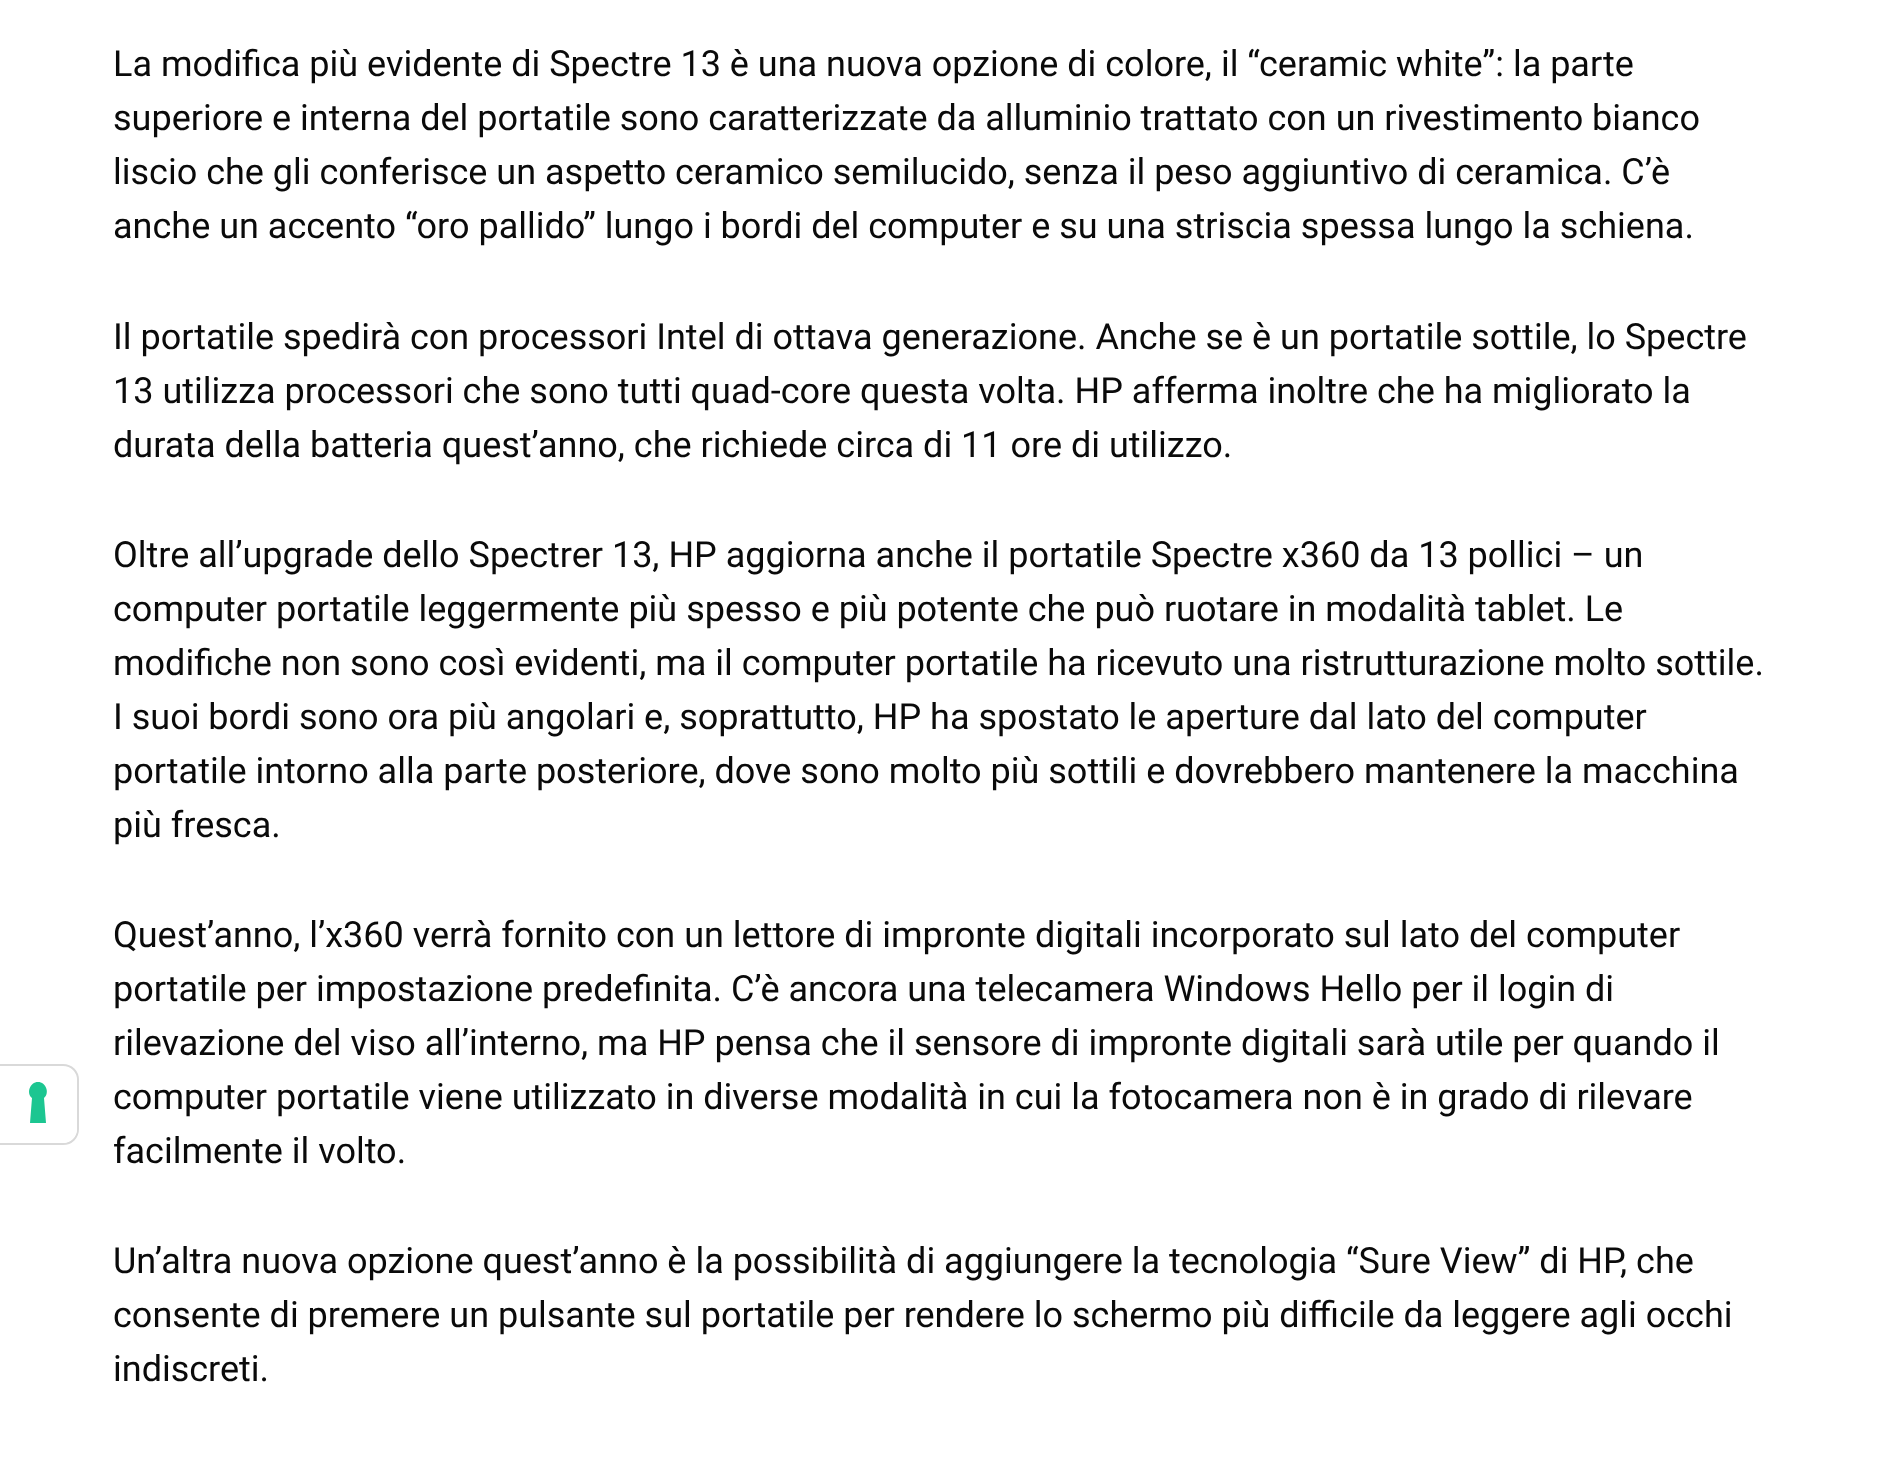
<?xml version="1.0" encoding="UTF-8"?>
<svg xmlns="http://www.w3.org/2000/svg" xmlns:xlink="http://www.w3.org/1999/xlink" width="1885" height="1470">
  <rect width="100%" height="100%" fill="#ffffff" />
  <path d="M -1 1065 h 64 c 8.5 0 15 6.5 15 15 v 49 c 0 8.5 -6.5 15 -15 15 h -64 z" fill="none" stroke="#d9d9d9" stroke-width="2" />
  <path d="M 0 1067 h 63 c 7.5 0 14 6.5 14 14 v 48 c 0 7.5 -6.5 14 -14 14 h -63 z" fill="#ffffff" />
  <path d="M 38 1082 c 8 0 12 11 6 16 l 2 25 h -16 l 2 -25 c -6 -5 -2 -16 6 -16 z" fill="#1cc691" fill-rule="evenodd" />
  <text x="113" y="76" style="font-family: Roboto; font-size: 36px; fill: #0a0a0a">La modifica più evidente di Spectre 13 è una nuova opzione di colore, il “ceramic white”: la parte</text>
  <text x="113" y="130" style="font-family: Roboto; font-size: 36px; fill: #0a0a0a">superiore e interna del portatile sono caratterizzate da alluminio trattato con un rivestimento bianco</text>
  <text x="113" y="184" style="font-family: Roboto; font-size: 36px; fill: #0a0a0a">liscio che gli conferisce un aspetto ceramico semilucido, senza il peso aggiuntivo di ceramica. C’è</text>
  <text x="113" y="238" style="font-family: Roboto; font-size: 36px; fill: #0a0a0a">anche un accento “oro pallido” lungo i bordi del computer e su una striscia spessa lungo la schiena.</text>
  <text x="113" y="349" style="font-family: Roboto; font-size: 36px; fill: #0a0a0a">Il portatile spedirà con processori Intel di ottava generazione. Anche se è un portatile sottile, lo Spectre</text>
  <text x="113" y="403" style="font-family: Roboto; font-size: 36px; fill: #0a0a0a">13 utilizza processori che sono tutti quad-core questa volta. HP afferma inoltre che ha migliorato la</text>
  <text x="113" y="457" style="font-family: Roboto; font-size: 36px; fill: #0a0a0a">durata della batteria quest’anno, che richiede circa di 11 ore di utilizzo.</text>
  <text x="113" y="567" style="font-family: Roboto; font-size: 36px; fill: #0a0a0a">Oltre all’upgrade dello Spectrer 13, HP aggiorna anche il portatile Spectre x360 da 13 pollici – un</text>
  <text x="113" y="621" style="font-family: Roboto; font-size: 36px; fill: #0a0a0a">computer portatile leggermente più spesso e più potente che può ruotare in modalità tablet. Le</text>
  <text x="113" y="675" style="font-family: Roboto; font-size: 36px; fill: #0a0a0a">modifiche non sono così evidenti, ma il computer portatile ha ricevuto una ristrutturazione molto sottile.</text>
  <text x="113" y="729" style="font-family: Roboto; font-size: 36px; fill: #0a0a0a">I suoi bordi sono ora più angolari e, soprattutto, HP ha spostato le aperture dal lato del computer</text>
  <text x="113" y="783" style="font-family: Roboto; font-size: 36px; fill: #0a0a0a">portatile intorno alla parte posteriore, dove sono molto più sottili e dovrebbero mantenere la macchina</text>
  <text x="113" y="837" style="font-family: Roboto; font-size: 36px; fill: #0a0a0a">più fresca.</text>
  <text x="113" y="947" style="font-family: Roboto; font-size: 36px; fill: #0a0a0a">Quest’anno, l’x360 verrà fornito con un lettore di impronte digitali incorporato sul lato del computer</text>
  <text x="113" y="1001" style="font-family: Roboto; font-size: 36px; fill: #0a0a0a">portatile per impostazione predefinita. C’è ancora una telecamera Windows Hello per il login di</text>
  <text x="113" y="1055" style="font-family: Roboto; font-size: 36px; fill: #0a0a0a">rilevazione del viso all’interno, ma HP pensa che il sensore di impronte digitali sarà utile per quando il</text>
  <text x="113" y="1109" style="font-family: Roboto; font-size: 36px; fill: #0a0a0a">computer portatile viene utilizzato in diverse modalità in cui la fotocamera non è in grado di rilevare</text>
  <text x="113" y="1163" style="font-family: Roboto; font-size: 36px; fill: #0a0a0a">facilmente il volto.</text>
  <text x="113" y="1273" style="font-family: Roboto; font-size: 36px; fill: #0a0a0a">Un’altra nuova opzione quest’anno è la possibilità di aggiungere la tecnologia “Sure View” di HP, che</text>
  <text x="113" y="1327" style="font-family: Roboto; font-size: 36px; fill: #0a0a0a">consente di premere un pulsante sul portatile per rendere lo schermo più difficile da leggere agli occhi</text>
  <text x="113" y="1381" style="font-family: Roboto; font-size: 36px; fill: #0a0a0a">indiscreti.</text>
</svg>
